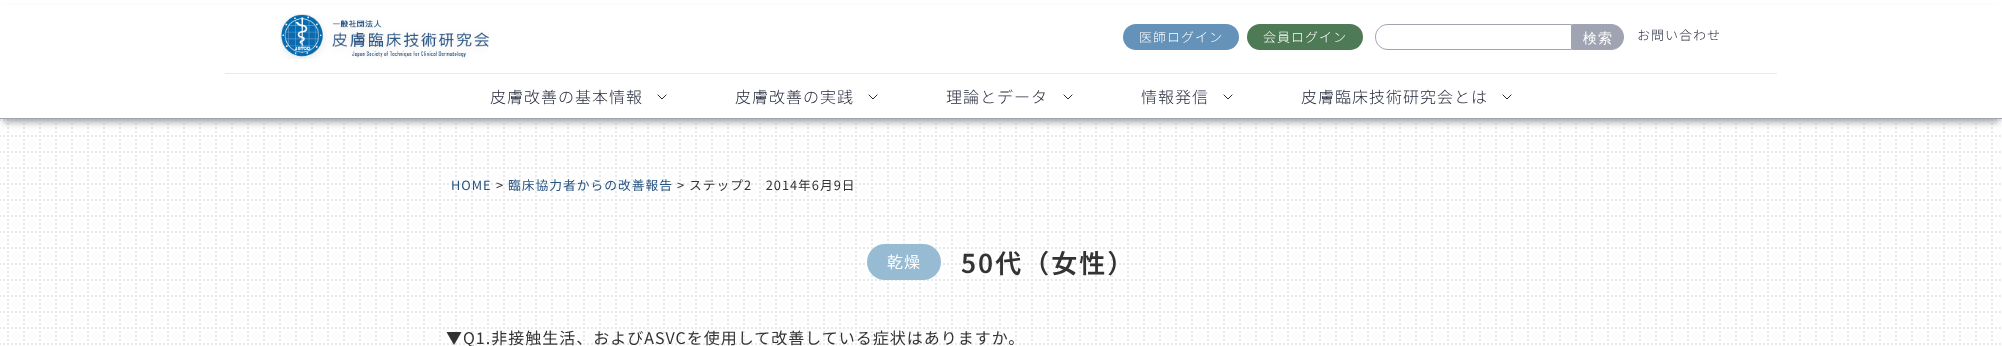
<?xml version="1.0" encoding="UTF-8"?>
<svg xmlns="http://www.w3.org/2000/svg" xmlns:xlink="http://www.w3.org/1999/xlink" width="2002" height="346">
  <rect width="100%" height="100%" fill="#ffffff" />
  <image x="0" y="119" width="2001" height="226" xlink:href="image1.png" />
  <rect x="3" y="10" width="1996" height="113" fill="#8a8a8a" fill-opacity="0.65" filter="blur(3px)" />
  <rect y="5" width="2002" height="113" fill="#ffffff" />
  <rect y="118" width="2002" height="1" fill="#a0a3b2" />
  <rect x="225" y="73" width="1552" height="1" fill="#e6eaed" />
  <image x="280" y="14" width="209" height="45" xlink:href="image2.png" />
  <rect x="1123" y="24" width="116" height="26" rx="13" fill="#6492b8" />
  <rect x="1247" y="24" width="116" height="26" rx="13" fill="#4e7a55" />
  <path d="M 1388 24.5 h 183.5 v 25 h -183.5 c -7 0 -12.5 -5.5 -12.5 -12.5 c 0 -7 5.5 -12.5 12.5 -12.5 z" fill="none" stroke="#a0a3b2" />
  <path d="M 1572.5 24.5 h 38.5 c 7 0 12.5 5.5 12.5 12.5 c 0 7 -5.5 12.5 -12.5 12.5 h -38.5 z" fill="#a0a3b2" stroke="#a0a3b2" />
  <path d="M 666 95 l -4 4 l -4 -4" fill="none" stroke="#262a3b" stroke-linecap="square" />
  <path d="M 877 95 l -4 4 l -4 -4" fill="none" stroke="#262a3b" stroke-linecap="square" />
  <path d="M 1072 95 l -4 4 l -4 -4" fill="none" stroke="#262a3b" stroke-linecap="square" />
  <path d="M 1232 95 l -4 4 l -4 -4" fill="none" stroke="#262a3b" stroke-linecap="square" />
  <path d="M 1511 95 l -4 4 l -4 -4" fill="none" stroke="#262a3b" stroke-linecap="square" />
  <rect x="867" y="244" width="74" height="36" rx="18" fill="#97bbd3" />
  <text x="1139" y="42" style="font-family: Noto Sans JP; font-size: 13px; font-weight: 300; letter-spacing: 1px; fill: #ffffff">医師ログイン</text>
  <text x="1263" y="42" style="font-family: Noto Sans JP; font-size: 13px; font-weight: 300; letter-spacing: 1px; fill: #ffffff">会員ログイン</text>
  <text x="1583" y="43" style="font-family: WenQuanYi Zen Hei; font-size: 14px; font-weight: 500; letter-spacing: 1px; fill: #ffffff">検索</text>
  <text x="1637" y="40" style="font-family: Noto Sans JP; font-size: 13px; font-weight: 300; letter-spacing: 1px; fill: #262a3b">お問い合わせ</text>
  <text x="490" y="103" style="font-family: Noto Sans JP; font-size: 16px; font-weight: 300; letter-spacing: 1px; fill: #262a3b">皮膚改善の基本情報</text>
  <text x="735" y="103" style="font-family: Noto Sans JP; font-size: 16px; font-weight: 300; letter-spacing: 1px; fill: #262a3b">皮膚改善の実践</text>
  <text x="946" y="103" style="font-family: Noto Sans JP; font-size: 16px; font-weight: 300; letter-spacing: 1px; fill: #262a3b">理論とデータ</text>
  <text x="1141" y="103" style="font-family: Noto Sans JP; font-size: 16px; font-weight: 300; letter-spacing: 1px; fill: #262a3b">情報発信</text>
  <text x="1301" y="103" style="font-family: Noto Sans JP; font-size: 16px; font-weight: 300; letter-spacing: 1px; fill: #262a3b">皮膚臨床技術研究会とは</text>
  <text x="451" y="190" style="font-family: Noto Sans JP; font-size: 12.75px; letter-spacing: 1px; fill: #265280">HOME</text>
  <text x="496" y="190" style="font-family: Noto Sans JP; font-size: 12.75px; letter-spacing: 1px; fill: #333333">&gt;</text>
  <text x="508" y="190" style="font-family: Noto Sans JP; font-size: 12.75px; letter-spacing: 1px; fill: #265280">臨床協力者からの改善報告</text>
  <text x="677" y="190" style="font-family: Noto Sans JP; font-size: 12.75px; letter-spacing: 1px; fill: #333333">&gt; ステップ2　2014年6月9日</text>
  <text x="887" y="268" style="font-family: Noto Sans JP; font-size: 16px; letter-spacing: 1px; fill: #ffffff">乾燥</text>
  <text x="961" y="273" style="font-family: Noto Sans JP; font-size: 26px; font-weight: 600; letter-spacing: 2px; fill: #333333">50代（女性）</text>
  <text x="446" y="344" style="font-family: Noto Sans JP; font-size: 16px; letter-spacing: 1px; fill: #333333">▼Q1.非接触生活、およびASVCを使用して改善している症状はありますか。</text>
</svg>
